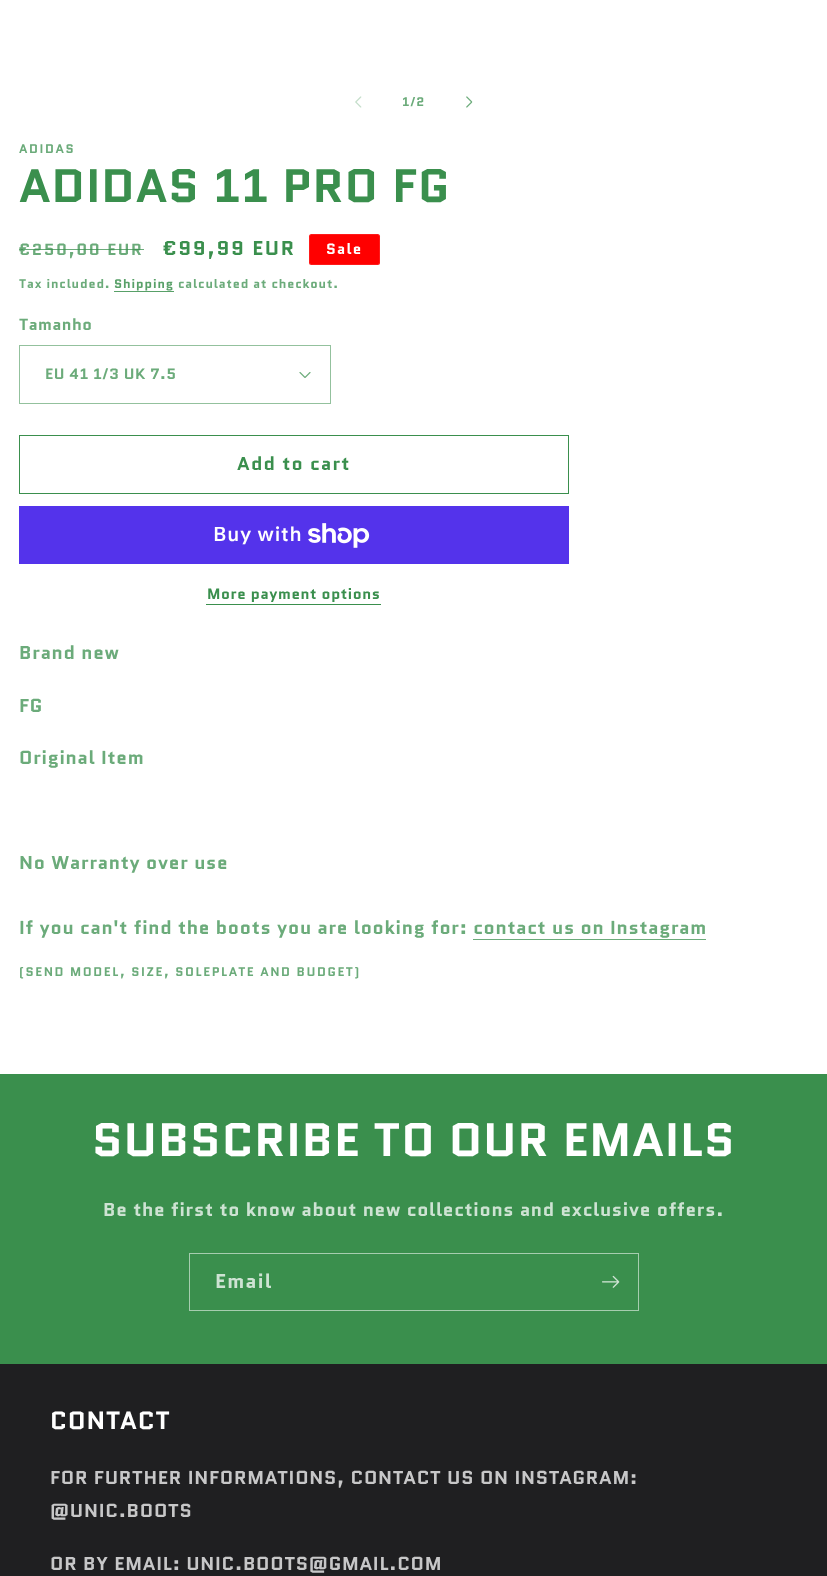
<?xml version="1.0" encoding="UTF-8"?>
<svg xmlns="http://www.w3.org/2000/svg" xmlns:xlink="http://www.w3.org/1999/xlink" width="827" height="1576">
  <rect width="100%" height="100%" fill="#ffffff" />
  <image x="355" y="96" width="7" height="12" xlink:href="image1.png" />
  <image x="466" y="96" width="7" height="12" xlink:href="image2.png" />
  <rect x="309" y="234" width="71" height="31" rx="2.5" fill="#ff0000" />
  <rect x="309.5" y="234.5" width="70" height="30" rx="2" fill="none" stroke="#ffffff" stroke-opacity="0.1" />
  <rect x="114" y="291" width="60" height="1" fill="#58a068" />
  <image x="299" y="372" width="12" height="6" xlink:href="image3.png" />
  <rect x="19.5" y="345.5" width="311" height="58" fill="none" stroke="#93c19d" />
  <rect x="19.5" y="435.5" width="549" height="58" fill="none" stroke="#3a8f4d" />
  <rect x="19" y="506" width="550" height="58" fill="#5433eb" />
  <image x="308" y="523" width="62" height="25" xlink:href="image4.png" />
  <rect x="206" y="604" width="175" height="1" fill="#3a8f4d" />
  <rect x="473" y="939" width="233" height="1" fill="#6bab7a" />
  <rect y="1074" width="827" height="290" fill="#3a8f4d" />
  <rect x="189.5" y="1253.5" width="449" height="57" fill="none" stroke="#a6cdaf" />
  <image x="602" y="1275" width="18" height="13" xlink:href="image5.png" />
  <rect y="1364" width="827" height="212" fill="#1f1f21" />
  <text x="402" y="106" style="font-family: Quantico; font-size: 12.5px; font-weight: bold; letter-spacing: 0.9px; fill: #6bab7a">1/2</text>
  <text x="19" y="153" style="font-family: Quantico; font-size: 12.5px; font-weight: bold; letter-spacing: 1.6px; fill: #6bab7a">ADIDAS</text>
  <text x="19" y="202" style="font-family: Quantico; font-size: 46.9px; font-weight: bold; letter-spacing: 0.9px; fill: #3a8f4d">ADIDAS 11 PRO FG</text>
  <text x="19" y="255" style="font-family: Quantico; font-size: 16.25px; font-weight: bold; letter-spacing: 1.6px; fill: #6bab7a">€250,00 EUR</text>
  <rect x="19" y="249" width="125" height="1" fill="#3a8f4d" fill-opacity="0.75" />
  <text x="163" y="255" style="font-family: Quantico; font-size: 20px; font-weight: bold; letter-spacing: 1.6px; fill: #3a8f4d">€99,99 EUR</text>
  <text x="326" y="254" style="font-family: Quantico; font-size: 15px; font-weight: bold; letter-spacing: 1.25px; fill: #ffffff">Sale</text>
  <text x="19" y="288" style="font-family: Quantico; font-size: 12.5px; font-weight: bold; letter-spacing: 0.9px; fill: #6bab7a">Tax included.</text>
  <text x="114" y="288" style="font-family: Quantico; font-size: 12.5px; font-weight: bold; letter-spacing: 0.9px; fill: #58a068">Shipping</text>
  <text x="178" y="288" style="font-family: Quantico; font-size: 12.5px; font-weight: bold; letter-spacing: 0.9px; fill: #6bab7a">calculated at checkout.</text>
  <text x="19" y="330" style="font-family: Quantico; font-size: 16.25px; font-weight: bold; letter-spacing: 0.5px; fill: #6bab7a">Tamanho</text>
  <text x="45" y="379" style="font-family: Quantico; font-size: 15px; font-weight: bold; letter-spacing: 0.5px; fill: #6bab7a">EU 41 1/3 UK 7.5</text>
  <text x="237" y="470" style="font-family: Quantico; font-size: 18.75px; font-weight: bold; letter-spacing: 1.25px; fill: #3a8f4d">Add to cart</text>
  <text x="213" y="541" style="font-family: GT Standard; font-size: 20px; font-weight: 600; letter-spacing: 0.75px; fill: #ffffff">Buy with</text>
  <text x="207" y="599" style="font-family: Quantico; font-size: 15px; font-weight: bold; letter-spacing: 0.6px; fill: #3a8f4d">More payment options</text>
  <text x="19" y="659" style="font-family: Quantico; font-size: 18.75px; font-weight: bold; letter-spacing: 0.75px; fill: #6bab7a">Brand new</text>
  <text x="19" y="712" style="font-family: Quantico; font-size: 18.75px; font-weight: bold; letter-spacing: 0.75px; fill: #6bab7a">FG</text>
  <text x="19" y="764" style="font-family: Quantico; font-size: 18.75px; font-weight: bold; letter-spacing: 0.75px; fill: #6bab7a">Original Item</text>
  <text x="19" y="869" style="font-family: Quantico; font-size: 18.75px; font-weight: bold; letter-spacing: 0.75px; fill: #6bab7a">No Warranty over use</text>
  <text x="19" y="934" style="font-family: Quantico; font-size: 18.75px; font-weight: bold; letter-spacing: 0.75px; fill: #6bab7a">If you can't find the boots you are looking for: contact us on Instagram</text>
  <text x="19" y="976" style="font-family: Quantico; font-size: 12.5px; font-weight: bold; letter-spacing: 1.6px; fill: #6bab7a">(SEND MODEL, SIZE, SOLEPLATE AND BUDGET)</text>
  <text x="92" y="1156" style="font-family: Quantico; font-size: 46.9px; font-weight: bold; letter-spacing: 0.9px; fill: #ffffff">SUBSCRIBE TO OUR EMAILS</text>
  <text x="103" y="1216" style="font-family: Quantico; font-size: 18.75px; font-weight: bold; letter-spacing: 0.75px; fill: #cee3d3">Be the first to know about new collections and exclusive offers.</text>
  <text x="215" y="1288" style="font-family: Quantico; font-size: 20px; font-weight: bold; letter-spacing: 1.25px; fill: #cee3d3">Email</text>
  <text x="50" y="1429" style="font-family: Quantico; font-size: 25px; font-weight: bold; letter-spacing: 0.9px; fill: #ffffff">CONTACT</text>
  <text x="50" y="1484" style="font-family: Quantico; font-size: 18.75px; font-weight: bold; letter-spacing: 0.75px; fill: #c7c7c8">FOR FURTHER INFORMATIONS, CONTACT US ON INSTAGRAM:</text>
  <text x="50" y="1517" style="font-family: Quantico; font-size: 18.75px; font-weight: bold; letter-spacing: 0.75px; fill: #c7c7c8">@UNIC.BOOTS</text>
  <text x="50" y="1570" style="font-family: Quantico; font-size: 18.75px; font-weight: bold; letter-spacing: 0.75px; fill: #c7c7c8">OR BY EMAIL: UNIC.BOOTS@GMAIL.COM</text>
</svg>
